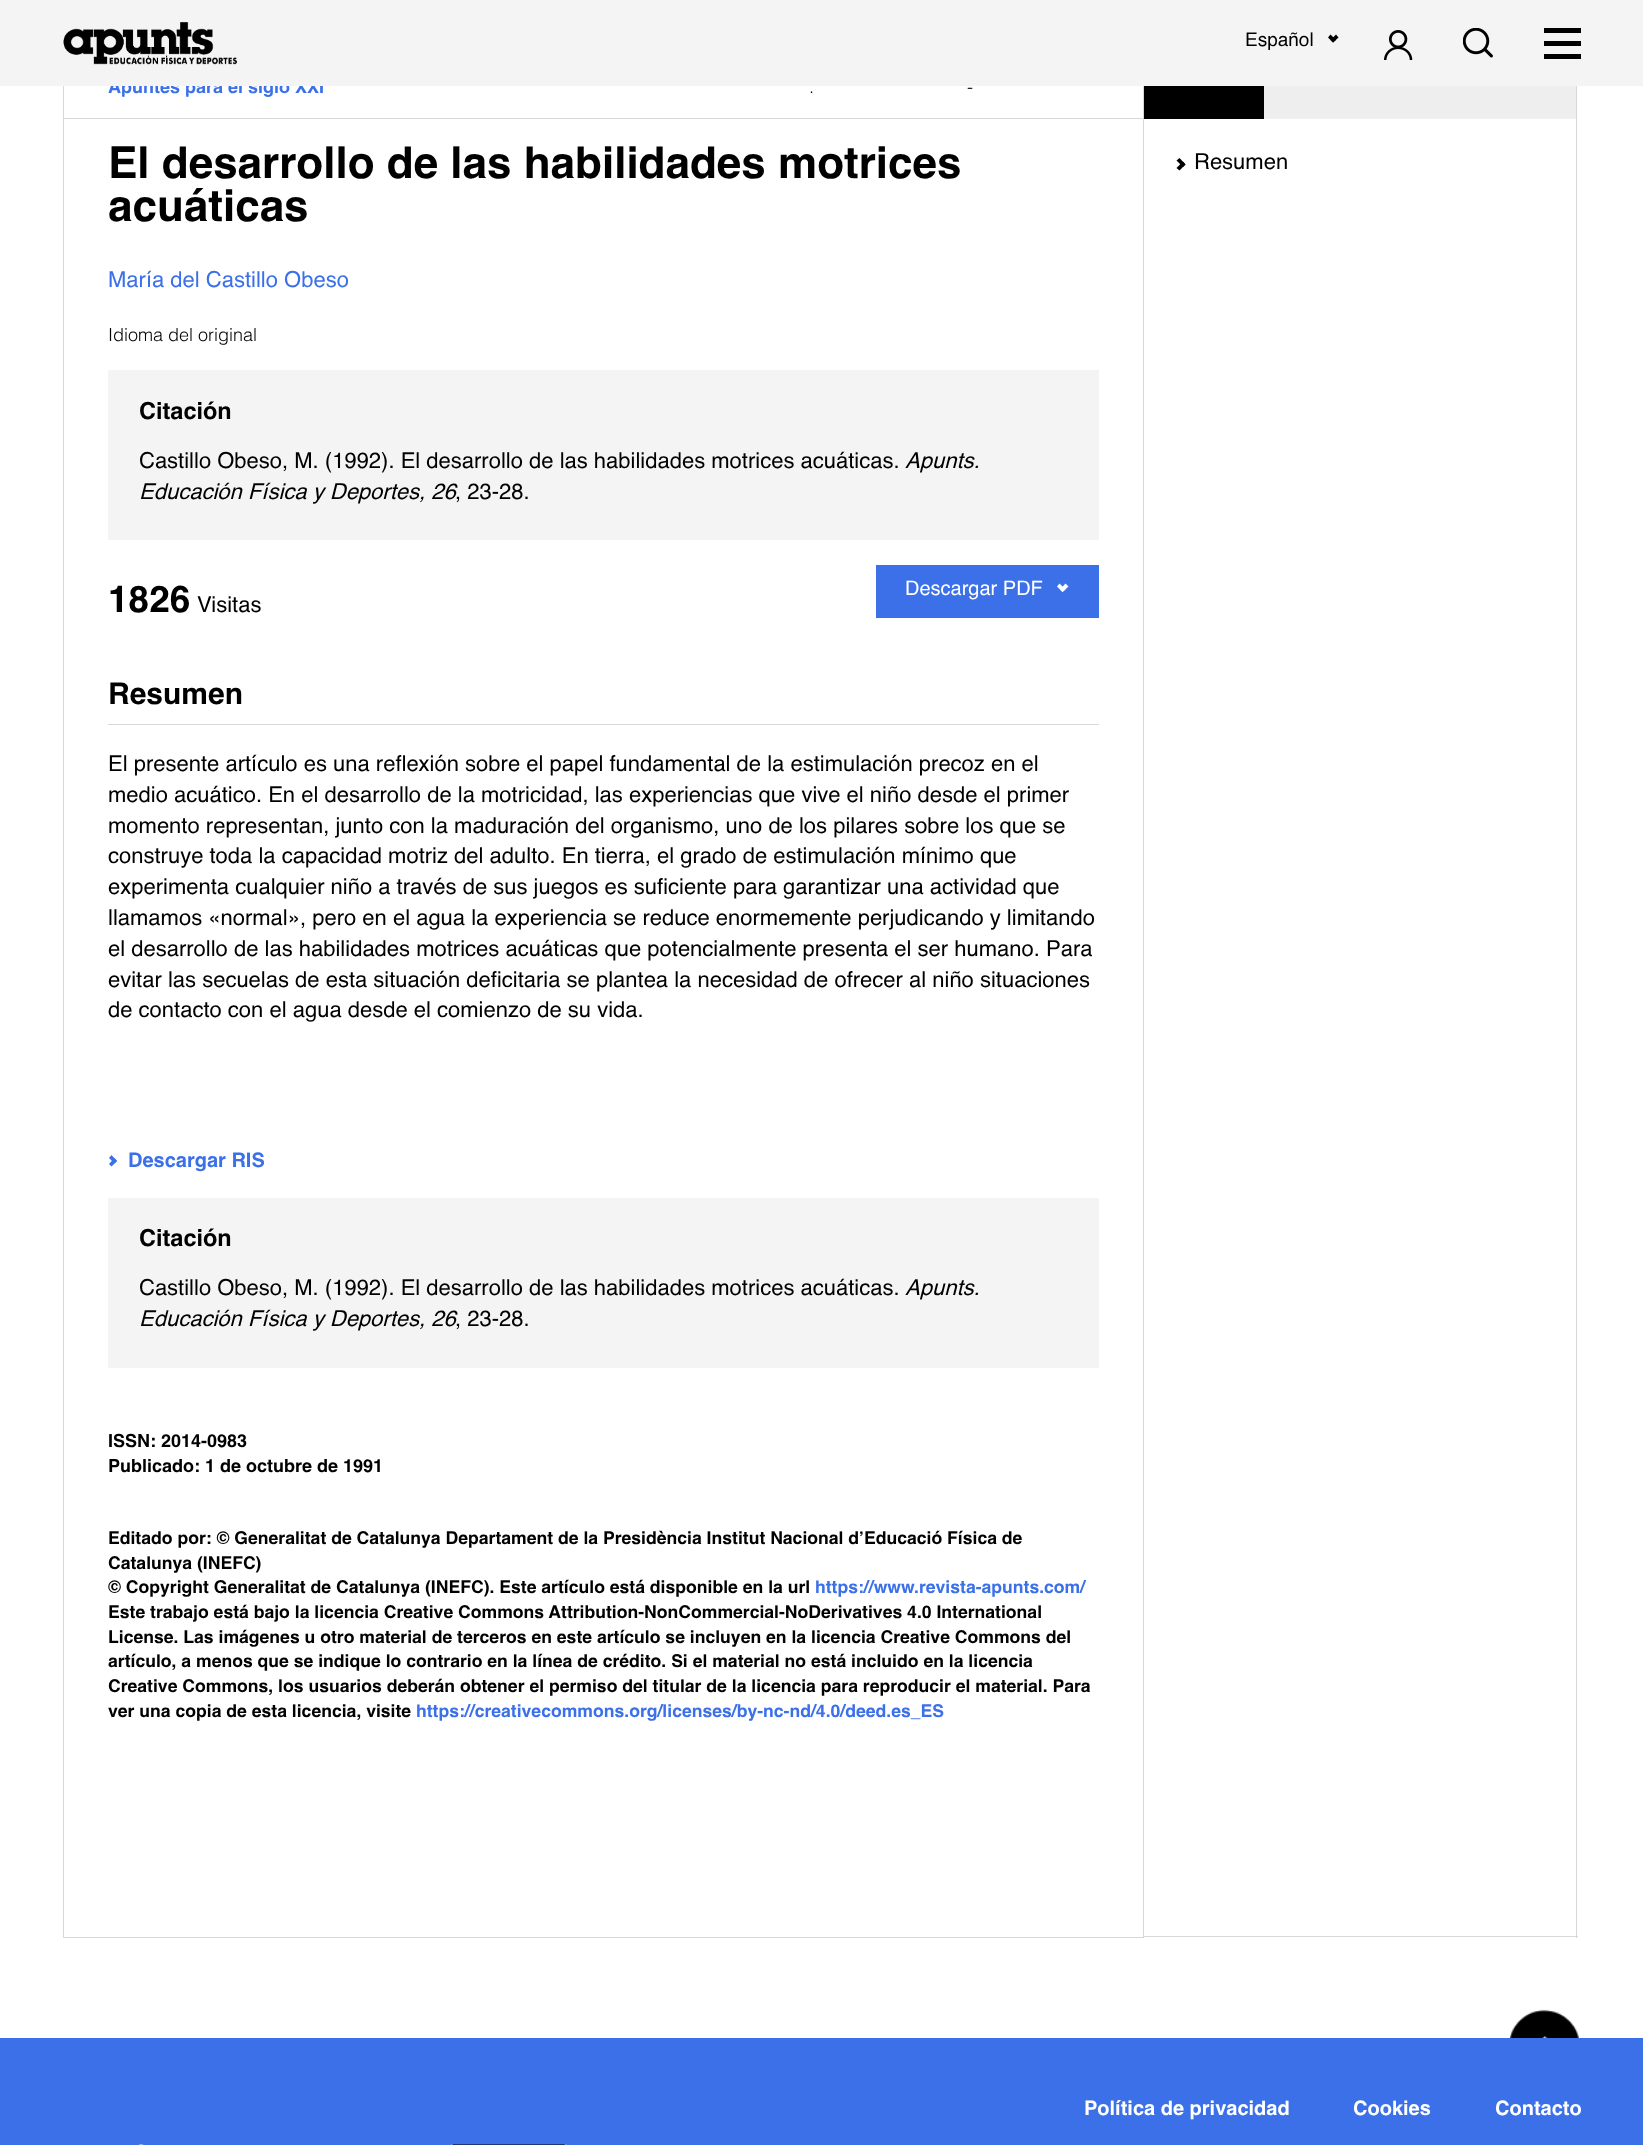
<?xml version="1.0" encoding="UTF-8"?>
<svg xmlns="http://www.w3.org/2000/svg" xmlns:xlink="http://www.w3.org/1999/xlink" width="1643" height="2145">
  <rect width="100%" height="100%" fill="#ffffff" />
  <rect x="63.5" y="55.5" width="1080" height="1882" fill="none" stroke="#d8d8d8" />
  <rect x="64" y="118" width="1079" height="1" fill="#d8d8d8" />
  <rect x="108" y="370" width="991" height="170" fill="#f4f4f4" />
  <rect x="876" y="565" width="223" height="53" fill="#3b70e8" />
  <path d="M 1068.5 586.5 l -6 5.5 l -2.5 -2.5 l 5.5 -6 z" fill="#ffffff" />
  <path d="M 1065.5 589.5 l -3 2.5 l -5.5 -5.5 l 2.5 -3 z" fill="#ffffff" />
  <rect x="108" y="724" width="991" height="1" fill="#d8d8d8" />
  <path d="M 111.5 1155 l 5.5 6 l -2.5 2.5 l -5.5 -5.5 z" fill="#3b70e8" />
  <path d="M 114.5 1158 l 2.5 3 l -5.5 5.5 l -2.5 -2.5 z" fill="#3b70e8" />
  <rect x="108" y="1198" width="991" height="170" fill="#f4f4f4" />
  <rect x="1576" y="86" width="1" height="1852" fill="#d8d8d8" />
  <rect x="1144" y="1936" width="434" height="1" fill="#d8d8d8" />
  <rect x="1144" y="86" width="120" height="33" fill="#000000" />
  <rect x="1264" y="86" width="312" height="33" fill="#eeeeee" />
  <path d="M 1179.5 158 l 6 6.5 l -2.5 2.5 l -6.5 -6.5 z" fill="#000000" />
  <path d="M 1183 161.5 l 2.5 3 l -6 6 l -3 -2.5 z" fill="#000000" />
  <image x="1509" y="2009" width="70" height="29" xlink:href="image4.png" />
  <rect y="2038" width="1643" height="107" fill="#3b70e8" />
  <image x="137" y="2144" width="8" height="1" xlink:href="image5.png" />
  <image x="451" y="2144" width="116" height="1" xlink:href="image6.png" />
  <text x="108" y="93" style="font-family: Helvetica; font-size: 18px; font-weight: bold; fill: #3b70e8">Apuntes para el siglo XXI</text>
  <rect width="1643" height="86" fill="#f4f4f4" />
  <image x="1384" y="30" width="29" height="30" xlink:href="image2.png" />
  <path d="M 1338.5 37.5 l -5.5 5 l -2.5 -2.5 l 5.5 -5.5 z" fill="#000000" />
  <path d="M 1336 40 l -3 2.5 l -5 -5 l 2.5 -3 z" fill="#000000" />
  <text x="1245" y="46" style="font-family: Helvetica; font-size: 19px; fill: #000000">Español</text>
  <image x="1463" y="28" width="30" height="30" xlink:href="image3.png" />
  <rect x="1544" y="54" width="37" height="5" fill="#000000" />
  <rect x="1544" y="41" width="37" height="5" fill="#000000" />
  <rect x="1544" y="28" width="37" height="5" fill="#000000" />
  <image x="63" y="22" width="174" height="43" xlink:href="image1.png" />
  <text x="967" y="93" style="font-family: Helvetica; font-size: 18px; font-weight: 300; fill: #000000">-</text>
  <text x="809" y="93" style="font-family: Helvetica; font-size: 18px; font-weight: 300; fill: #000000">.</text>
  <text x="108" y="178" style="font-family: Helvetica; font-size: 44px; font-weight: bold; fill: #000000">El desarrollo de las habilidades motrices</text>
  <text x="108" y="221" style="font-family: Helvetica; font-size: 44px; font-weight: bold; fill: #000000">acuáticas</text>
  <text x="108" y="287" style="font-family: Helvetica; font-size: 22px; fill: #3b70e8">María del Castillo Obeso</text>
  <text x="108" y="341" style="font-family: Helvetica; font-size: 18px; font-weight: 300; fill: #000000">Idioma del original</text>
  <text x="139" y="419" style="font-family: Helvetica; font-size: 23.5px; font-weight: bold; fill: #000000">Citación</text>
  <text x="139" y="468" style="font-family: Helvetica; font-size: 22px; fill: #000000">Castillo Obeso, M. (1992). El desarrollo de las habilidades motrices acuáticas.</text>
  <text x="905" y="468" style="font-family: Helvetica; font-size: 22px; font-style: italic; fill: #000000">Apunts.</text>
  <text x="139" y="499" style="font-family: Helvetica; font-size: 22px; font-style: italic; fill: #000000">Educación Física y Deportes, 26</text>
  <text x="455" y="499" style="font-family: Helvetica; font-size: 22px; fill: #000000">, 23-28.</text>
  <text x="108" y="612" style="font-family: Helvetica; font-size: 37px; font-weight: bold; fill: #000000">1826</text>
  <text x="197" y="612" style="font-family: Helvetica; font-size: 22px; fill: #000000">Visitas</text>
  <text x="905" y="595" style="font-family: Helvetica; font-size: 20px; fill: #ffffff">Descargar PDF</text>
  <text x="108" y="704" style="font-family: Helvetica; font-size: 30px; font-weight: bold; fill: #000000">Resumen</text>
  <text x="108" y="771" style="font-family: Helvetica; font-size: 22px; fill: #000000">El presente artículo es una reflexión sobre el papel fundamental de la estimulación precoz en el</text>
  <text x="108" y="802" style="font-family: Helvetica; font-size: 22px; fill: #000000">medio acuático. En el desarrollo de la motricidad, las experiencias que vive el niño desde el primer</text>
  <text x="108" y="833" style="font-family: Helvetica; font-size: 22px; fill: #000000">momento representan, junto con la maduración del organismo, uno de los pilares sobre los que se</text>
  <text x="108" y="863" style="font-family: Helvetica; font-size: 22px; fill: #000000">construye toda la capacidad motriz del adulto. En tierra, el grado de estimulación mínimo que</text>
  <text x="108" y="894" style="font-family: Helvetica; font-size: 22px; fill: #000000">experimenta cualquier niño a través de sus juegos es suficiente para garantizar una actividad que</text>
  <text x="108" y="925" style="font-family: Helvetica; font-size: 22px; fill: #000000">llamamos «normal», pero en el agua la experiencia se reduce enormemente perjudicando y limitando</text>
  <text x="108" y="956" style="font-family: Helvetica; font-size: 22px; fill: #000000">el desarrollo de las habilidades motrices acuáticas que potencialmente presenta el ser humano. Para</text>
  <text x="108" y="987" style="font-family: Helvetica; font-size: 22px; fill: #000000">evitar las secuelas de esta situación deficitaria se plantea la necesidad de ofrecer al niño situaciones</text>
  <text x="108" y="1017" style="font-family: Helvetica; font-size: 22px; fill: #000000">de contacto con el agua desde el comienzo de su vida.</text>
  <text x="128" y="1167" style="font-family: Helvetica; font-size: 20px; font-weight: bold; fill: #3b70e8">Descargar RIS</text>
  <text x="139" y="1246" style="font-family: Helvetica; font-size: 23.5px; font-weight: bold; fill: #000000">Citación</text>
  <text x="139" y="1295" style="font-family: Helvetica; font-size: 22px; fill: #000000">Castillo Obeso, M. (1992). El desarrollo de las habilidades motrices acuáticas.</text>
  <text x="905" y="1295" style="font-family: Helvetica; font-size: 22px; font-style: italic; fill: #000000">Apunts.</text>
  <text x="139" y="1326" style="font-family: Helvetica; font-size: 22px; font-style: italic; fill: #000000">Educación Física y Deportes, 26</text>
  <text x="455" y="1326" style="font-family: Helvetica; font-size: 22px; fill: #000000">, 23-28.</text>
  <text x="108" y="1447" style="font-family: Helvetica; font-size: 18px; font-weight: bold; fill: #000000">ISSN: 2014-0983</text>
  <text x="108" y="1472" style="font-family: Helvetica; font-size: 18px; font-weight: bold; fill: #000000">Publicado: 1 de octubre de 1991</text>
  <text x="108" y="1544" style="font-family: Helvetica; font-size: 17.6px; font-weight: bold; fill: #000000">Editado por: © Generalitat de Catalunya Departament de la Presidència Institut Nacional d’Educació Física de</text>
  <text x="108" y="1569" style="font-family: Helvetica; font-size: 17.6px; font-weight: bold; fill: #000000">Catalunya (INEFC)</text>
  <text x="108" y="1593" style="font-family: Helvetica; font-size: 17.6px; font-weight: bold; fill: #000000">© Copyright Generalitat de Catalunya (INEFC). Este artículo está disponible en la url</text>
  <text x="815" y="1593" style="font-family: Helvetica; font-size: 17.6px; font-weight: bold; fill: #3b70e8">https://www.revista-apunts.com/</text>
  <text x="108" y="1618" style="font-family: Helvetica; font-size: 17.6px; font-weight: bold; fill: #000000">Este trabajo está bajo la licencia Creative Commons Attribution-NonCommercial-NoDerivatives 4.0 International</text>
  <text x="108" y="1643" style="font-family: Helvetica; font-size: 17.6px; font-weight: bold; fill: #000000">License. Las imágenes u otro material de terceros en este artículo se incluyen en la licencia Creative Commons del</text>
  <text x="108" y="1667" style="font-family: Helvetica; font-size: 17.6px; font-weight: bold; fill: #000000">artículo, a menos que se indique lo contrario en la línea de crédito. Si el material no está incluido en la licencia</text>
  <text x="108" y="1692" style="font-family: Helvetica; font-size: 17.6px; font-weight: bold; fill: #000000">Creative Commons, los usuarios deberán obtener el permiso del titular de la licencia para reproducir el material. Para</text>
  <text x="108" y="1717" style="font-family: Helvetica; font-size: 17.6px; font-weight: bold; fill: #000000">ver una copia de esta licencia, visite</text>
  <text x="416" y="1717" style="font-family: Helvetica; font-size: 17.6px; font-weight: bold; fill: #3b70e8">https://creativecommons.org/licenses/by-nc-nd/4.0/deed.es_ES</text>
  <text x="1194" y="169" style="font-family: Helvetica; font-size: 22px; fill: #000000">Resumen</text>
  <text x="1084" y="2115" style="font-family: Helvetica; font-size: 20px; font-weight: bold; fill: #ffffff">Política de privacidad</text>
  <text x="1353" y="2115" style="font-family: Helvetica; font-size: 20px; font-weight: bold; fill: #ffffff">Cookies</text>
  <text x="1495" y="2115" style="font-family: Helvetica; font-size: 20px; font-weight: bold; fill: #ffffff">Contacto</text>
</svg>
